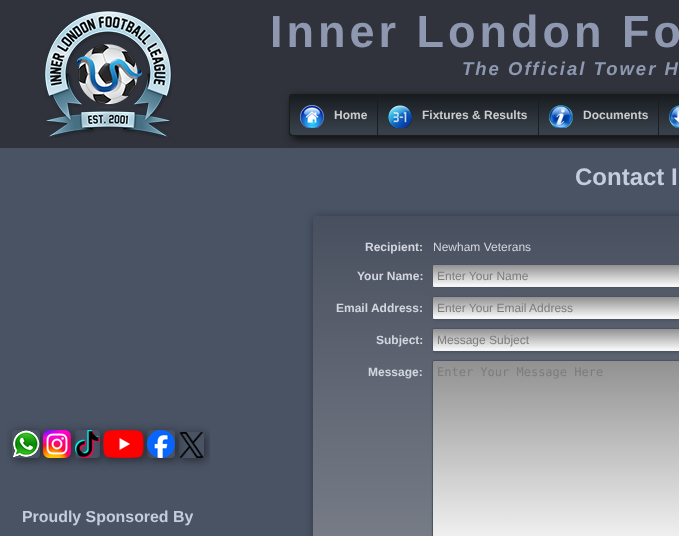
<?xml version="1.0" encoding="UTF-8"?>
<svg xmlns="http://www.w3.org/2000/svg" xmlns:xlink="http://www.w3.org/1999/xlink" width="679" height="536">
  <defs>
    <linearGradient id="g1" gradientUnits="userSpaceOnUse" x1="334" y1="95" x2="334" y2="135"><stop offset="0" stop-color="#181c20" /><stop offset="0.91" stop-color="#37404a" /></linearGradient>
    <linearGradient id="g2" gradientUnits="userSpaceOnUse" x1="458" y1="95" x2="458" y2="135"><stop offset="0" stop-color="#181c20" /><stop offset="0.91" stop-color="#37404a" /></linearGradient>
    <linearGradient id="g3" gradientUnits="userSpaceOnUse" x1="599" y1="95" x2="599" y2="135"><stop offset="0" stop-color="#181c20" /><stop offset="0.91" stop-color="#37404a" /></linearGradient>
    <linearGradient id="g4" gradientUnits="userSpaceOnUse" x1="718" y1="95" x2="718" y2="135"><stop offset="0" stop-color="#181c20" /><stop offset="0.91" stop-color="#37404a" /></linearGradient>
    <linearGradient id="g5" gradientUnits="userSpaceOnUse" x1="648" y1="216" x2="648" y2="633"><stop offset="0" stop-color="#484f5e" /><stop offset="0.91" stop-color="#7f848e" /></linearGradient>
    <linearGradient id="g6" gradientUnits="userSpaceOnUse" x1="655" y1="265" x2="655" y2="287"><stop offset="0" stop-color="#919191" /><stop offset="0.91" stop-color="#f5f5f5" /></linearGradient>
    <linearGradient id="g7" gradientUnits="userSpaceOnUse" x1="655" y1="297" x2="655" y2="319"><stop offset="0" stop-color="#919191" /><stop offset="0.91" stop-color="#f5f5f5" /></linearGradient>
    <linearGradient id="g8" gradientUnits="userSpaceOnUse" x1="655" y1="329" x2="655" y2="351"><stop offset="0" stop-color="#919191" /><stop offset="0.91" stop-color="#f5f5f5" /></linearGradient>
    <linearGradient id="g9" gradientUnits="userSpaceOnUse" x1="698" y1="361" x2="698" y2="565"><stop offset="0" stop-color="#919191" /><stop offset="0.91" stop-color="#f5f5f5" /></linearGradient>
    <clipPath id="clip1"><rect x="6" y="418" width="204" height="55" /></clipPath>
    <clipPath id="clip2"><path d="M 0 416 h 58 v 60 h -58 z m 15 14 h 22 c 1.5 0 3 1.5 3 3 v 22 c 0 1.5 -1.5 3 -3 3 h -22 c -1.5 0 -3 -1.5 -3 -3 v -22 c 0 -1.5 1.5 -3 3 -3 z" clip-rule="evenodd" /></clipPath>
    <clipPath id="clip3"><path d="M 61 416 h 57 v 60 h -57 z m 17 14 h 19 c 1.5 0 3 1.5 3 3 v 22 c 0 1.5 -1.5 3 -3 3 h -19 c -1.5 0 -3 -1.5 -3 -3 v -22 c 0 -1.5 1.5 -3 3 -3 z" clip-rule="evenodd" /></clipPath>
    <clipPath id="clip4"><path d="M 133 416 h 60 v 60 h -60 z m 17 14 h 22 c 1.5 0 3 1.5 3 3 v 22 c 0 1.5 -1.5 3 -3 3 h -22 c -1.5 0 -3 -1.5 -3 -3 v -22 c 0 -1.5 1.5 -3 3 -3 z" clip-rule="evenodd" /></clipPath>
    <clipPath id="clip5"><path d="M 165 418 h 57 v 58 h -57 z m 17 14 h 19 c 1.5 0 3 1.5 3 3 v 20 c 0 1.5 -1.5 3 -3 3 h -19 c -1.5 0 -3 -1.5 -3 -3 v -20 c 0 -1.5 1.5 -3 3 -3 z" clip-rule="evenodd" /></clipPath>
  </defs>
  <rect width="100%" height="100%" fill="#30333c" />
  <image x="44" y="10" width="128" height="128" xlink:href="image1.png" />
  <rect y="148" width="679" height="388" fill="#495364" />
  <rect x="292" y="97" width="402" height="42" rx="3" fill="#0c0c0c" filter="blur(4px)" />
  <rect x="289" y="94" width="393" height="42" rx="3" fill="#1b1c1d" />
  <path d="M 293 95 h 84 v 40 h -84 c -1.5 0 -3 -1.5 -3 -3 v -34 c 0 -1.5 1.5 -3 3 -3 z" fill="url(#g1)" />
  <image x="300" y="105" width="24" height="23" xlink:href="image2.png" />
  <rect x="378" y="95" width="160" height="40" fill="url(#g2)" />
  <image x="388" y="105" width="24" height="23" xlink:href="image3.png" />
  <rect x="539" y="95" width="119" height="40" fill="url(#g3)" />
  <image x="549" y="105" width="24" height="23" xlink:href="image4.png" />
  <rect x="659" y="95" width="20" height="40" fill="url(#g4)" />
  <image x="669" y="105" width="10" height="23" xlink:href="image5.png" />
  <rect x="315" y="218" width="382" height="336" rx="3" fill="#272931" filter="blur(5px)" />
  <rect x="313" y="216" width="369" height="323" rx="3" fill="url(#g5)" />
  <rect x="432" y="265" width="247" height="22" fill="url(#g6)" />
  <rect x="432.5" y="264.5" width="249" height="23" rx="1.5" fill="none" stroke="#4c5363" />
  <rect x="433" y="297" width="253" height="24" rx="2" fill="#4c5363" filter="blur(1.5px)" />
  <rect x="432" y="297" width="247" height="22" fill="url(#g7)" />
  <rect x="432.5" y="296.5" width="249" height="23" rx="1.5" fill="none" stroke="#4c5363" />
  <rect x="433" y="329" width="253" height="24" rx="2" fill="#4c5363" filter="blur(1.5px)" />
  <rect x="432" y="329" width="247" height="22" fill="url(#g8)" />
  <rect x="432.5" y="328.5" width="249" height="23" rx="1.5" fill="none" stroke="#4c5363" />
  <rect x="433" y="361" width="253" height="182" rx="2" fill="#4c5363" filter="blur(1.5px)" />
  <rect x="432" y="361" width="247" height="175" fill="url(#g9)" />
  <rect x="432.5" y="360.5" width="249" height="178" rx="1.5" fill="none" stroke="#4c5363" />
  <g clip-path="url(#clip1)">
    <g clip-path="url(#clip2)">
      <rect x="14" y="432" width="28" height="28" rx="3" fill="#272931" filter="blur(5px)" />
    </g>
  </g>
  <image x="12" y="430" width="28" height="28" xlink:href="image6.png" />
  <rect x="45" y="432" width="28" height="28" rx="3" fill="#272931" filter="blur(5px)" />
  <image x="43" y="430" width="28" height="28" xlink:href="image7.png" />
  <g clip-path="url(#clip3)">
    <rect x="77" y="432" width="25" height="28" rx="3" fill="#272931" filter="blur(5px)" />
  </g>
  <image x="75" y="430" width="25" height="28" xlink:href="image8.png" />
  <rect x="105" y="432" width="41" height="28" rx="3" fill="#272931" filter="blur(5px)" />
  <image x="103" y="430" width="41" height="28" xlink:href="image9.png" />
  <g clip-path="url(#clip4)">
    <rect x="149" y="432" width="28" height="28" rx="3" fill="#272931" filter="blur(5px)" />
  </g>
  <image x="147" y="430" width="28" height="28" xlink:href="image10.png" />
  <g clip-path="url(#clip1)">
    <g clip-path="url(#clip5)">
      <rect x="181" y="434" width="25" height="26" rx="3" fill="#272931" filter="blur(5px)" />
    </g>
  </g>
  <image x="179" y="432" width="25" height="26" xlink:href="image11.png" />
  <text x="270" y="47" style="font-family: Liberation Sans; font-size: 45px; font-weight: bold; letter-spacing: 4px; fill: #8e98b0">Inner London Fo</text>
  <text x="462" y="75" style="font-family: Liberation Sans; font-size: 18.5px; font-weight: bold; font-style: italic; letter-spacing: 2px; fill: #8e98b0">The Official Tower H</text>
  <text x="334" y="119" style="font-family: Liberation Sans; font-size: 12px; font-weight: bold; fill: #cccccc">Home</text>
  <text x="422" y="119" style="font-family: Liberation Sans; font-size: 12px; font-weight: bold; fill: #cccccc">Fixtures &amp; Results</text>
  <text x="583" y="119" style="font-family: Liberation Sans; font-size: 12px; font-weight: bold; fill: #cccccc">Documents</text>
  <text x="575" y="185" style="font-family: Liberation Sans; font-size: 24px; font-weight: bold; fill: #c5cddc">Contact I</text>
  <text x="365" y="251" style="font-family: Liberation Sans; font-size: 12px; font-weight: bold; fill: #d2d6df">Recipient:</text>
  <text x="433" y="251" style="font-family: Liberation Sans; font-size: 12px; fill: #d2d6df">Newham Veterans</text>
  <text x="357" y="280" style="font-family: Liberation Sans; font-size: 12px; font-weight: bold; fill: #d2d6df">Your Name:</text>
  <text x="437" y="280" style="font-family: Liberation Sans; font-size: 12px; fill: #7c7c7d">Enter Your Name</text>
  <text x="336" y="312" style="font-family: Liberation Sans; font-size: 12px; font-weight: bold; fill: #d2d6df">Email Address:</text>
  <text x="437" y="312" style="font-family: Liberation Sans; font-size: 12px; fill: #7c7c7d">Enter Your Email Address</text>
  <text x="376" y="344" style="font-family: Liberation Sans; font-size: 12px; font-weight: bold; fill: #d2d6df">Subject:</text>
  <text x="437" y="344" style="font-family: Liberation Sans; font-size: 12px; fill: #7c7c7d">Message Subject</text>
  <text x="368" y="376" style="font-family: Liberation Sans; font-size: 12px; font-weight: bold; fill: #d2d6df">Message:</text>
  <text x="437" y="376" style="font-family: DejaVu Sans Mono; font-size: 12px; fill: #7c7c7d">Enter Your Message Here</text>
  <text x="22" y="522" style="font-family: Liberation Sans; font-size: 15.9px; font-weight: bold; fill: #c5cddc">Proudly Sponsored By</text>
</svg>
